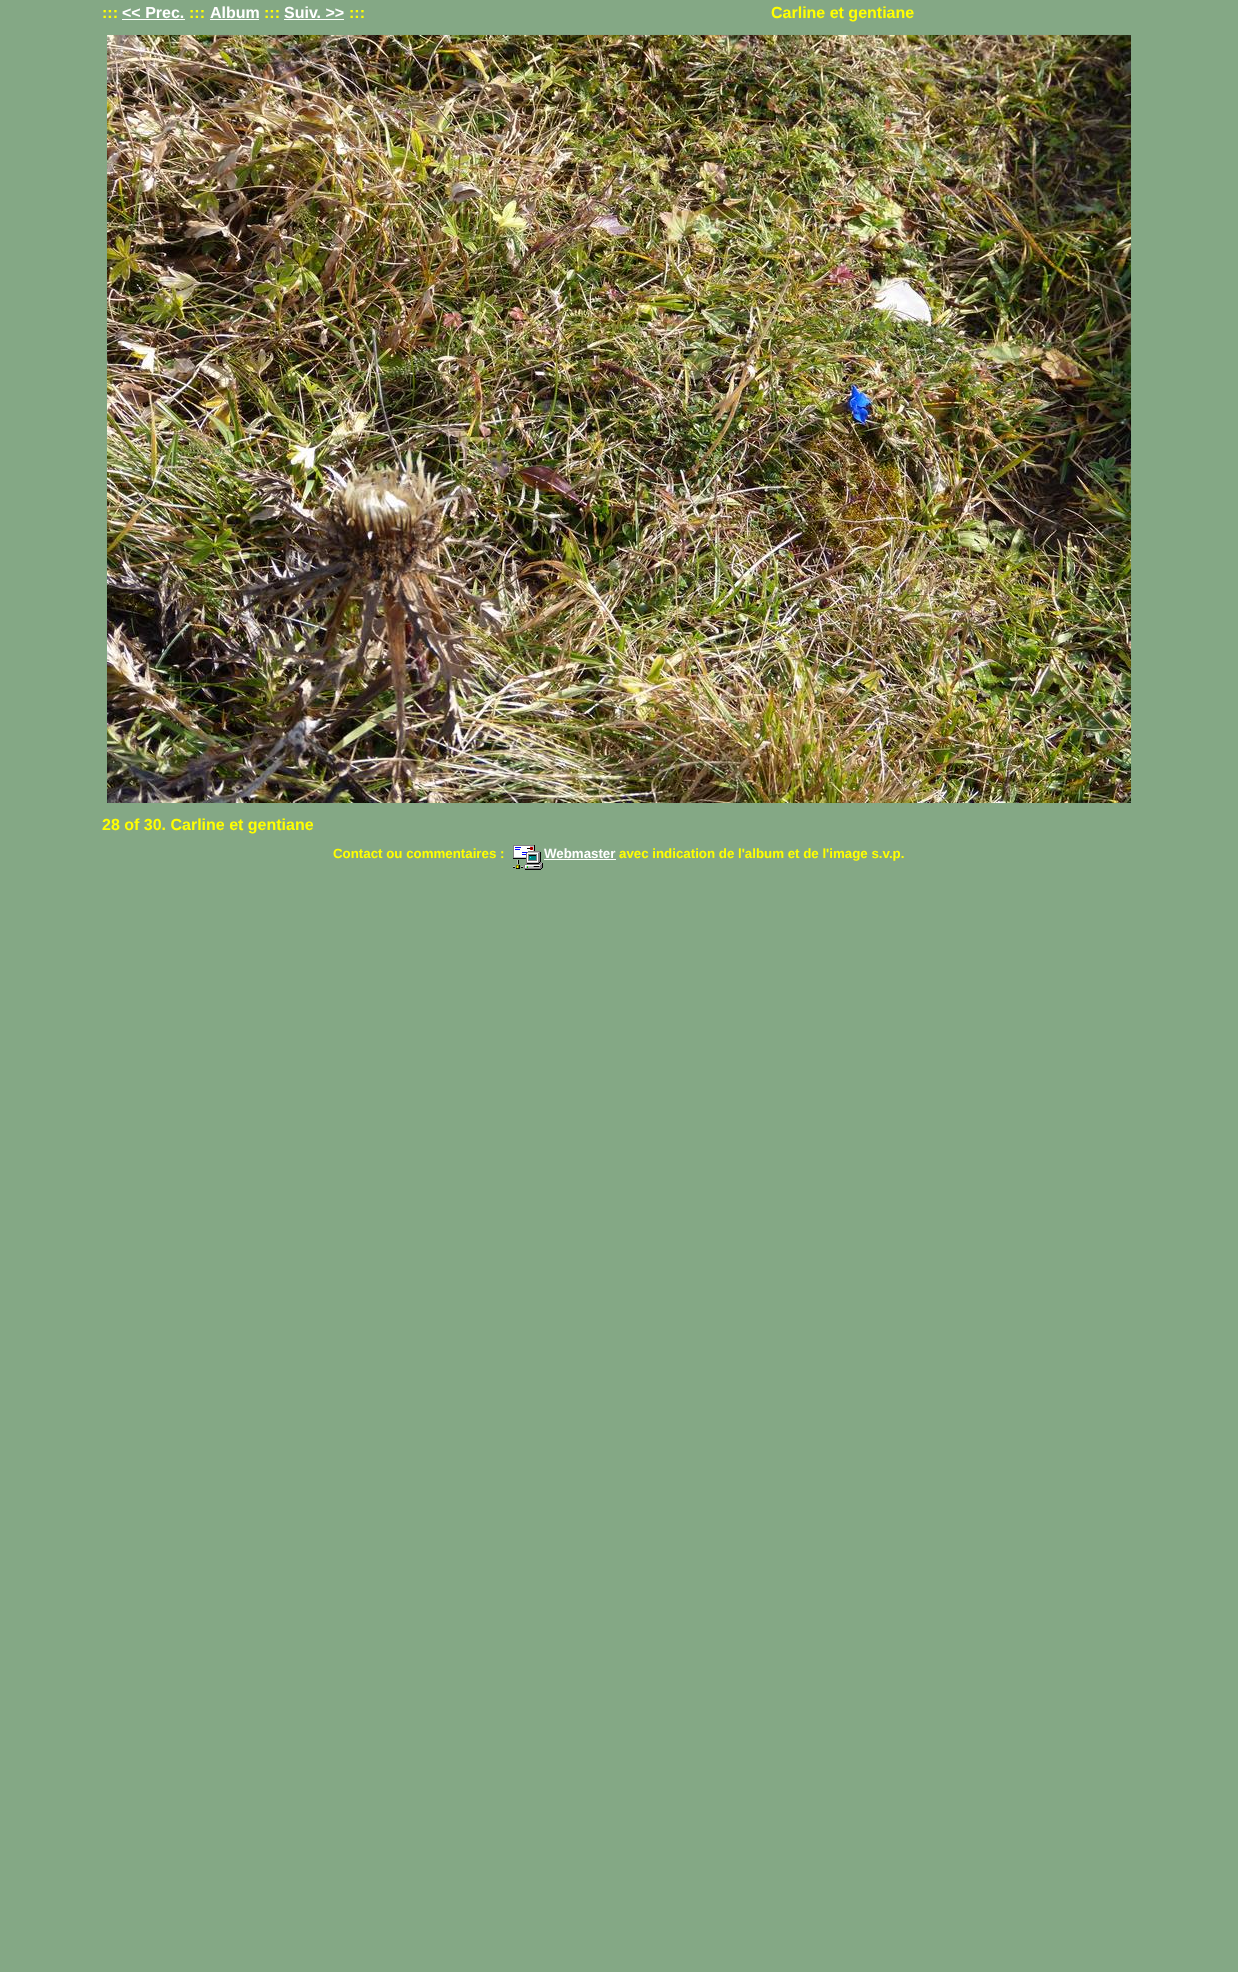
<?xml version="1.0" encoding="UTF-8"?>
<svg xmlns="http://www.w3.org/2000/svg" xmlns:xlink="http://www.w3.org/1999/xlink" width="1238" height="1972">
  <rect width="100%" height="100%" fill="#84a885" />
  <rect x="122" y="19" width="63" height="1" fill="#ffffff" />
  <rect x="210" y="19" width="49" height="1" fill="#ffffff" />
  <rect x="284" y="19" width="60" height="1" fill="#ffffff" />
  <image x="107" y="35" width="1024" height="768" xlink:href="image1.png" />
  <image x="513" y="845" width="30" height="25" xlink:href="image2.png" />
  <rect x="544" y="859" width="72" height="1" fill="#ffffff" />
  <text x="102" y="18" style="font-family: Liberation Sans; font-size: 16px; font-weight: bold; fill: #ffff00">:::</text>
  <text x="122" y="18" style="font-family: Liberation Sans; font-size: 16px; font-weight: bold; fill: #ffffff">&lt;&lt; Prec.</text>
  <text x="189" y="18" style="font-family: Liberation Sans; font-size: 16px; font-weight: bold; fill: #ffff00">:::</text>
  <text x="210" y="18" style="font-family: Liberation Sans; font-size: 16px; font-weight: bold; fill: #ffffff">Album</text>
  <text x="264" y="18" style="font-family: Liberation Sans; font-size: 16px; font-weight: bold; fill: #ffff00">:::</text>
  <text x="284" y="18" style="font-family: Liberation Sans; font-size: 16px; font-weight: bold; fill: #ffffff">Suiv. &gt;&gt;</text>
  <text x="349" y="18" style="font-family: Liberation Sans; font-size: 16px; font-weight: bold; fill: #ffff00">:::</text>
  <text x="771" y="18" style="font-family: Liberation Sans; font-size: 16px; font-weight: bold; fill: #ffff00">Carline et gentiane</text>
  <text x="102" y="830" style="font-family: Liberation Sans; font-size: 16px; font-weight: bold; fill: #ffff00">28 of 30. Carline et gentiane</text>
  <text x="333" y="858" style="font-family: Liberation Sans; font-size: 13.3px; font-weight: bold; fill: #ffff00">Contact ou commentaires :</text>
  <text x="544" y="858" style="font-family: Liberation Sans; font-size: 13.3px; font-weight: bold; fill: #ffffff">Webmaster</text>
  <text x="619" y="858" style="font-family: Liberation Sans; font-size: 13.3px; font-weight: bold; fill: #ffff00">avec indication de l'album et de l'image s.v.p.</text>
</svg>
